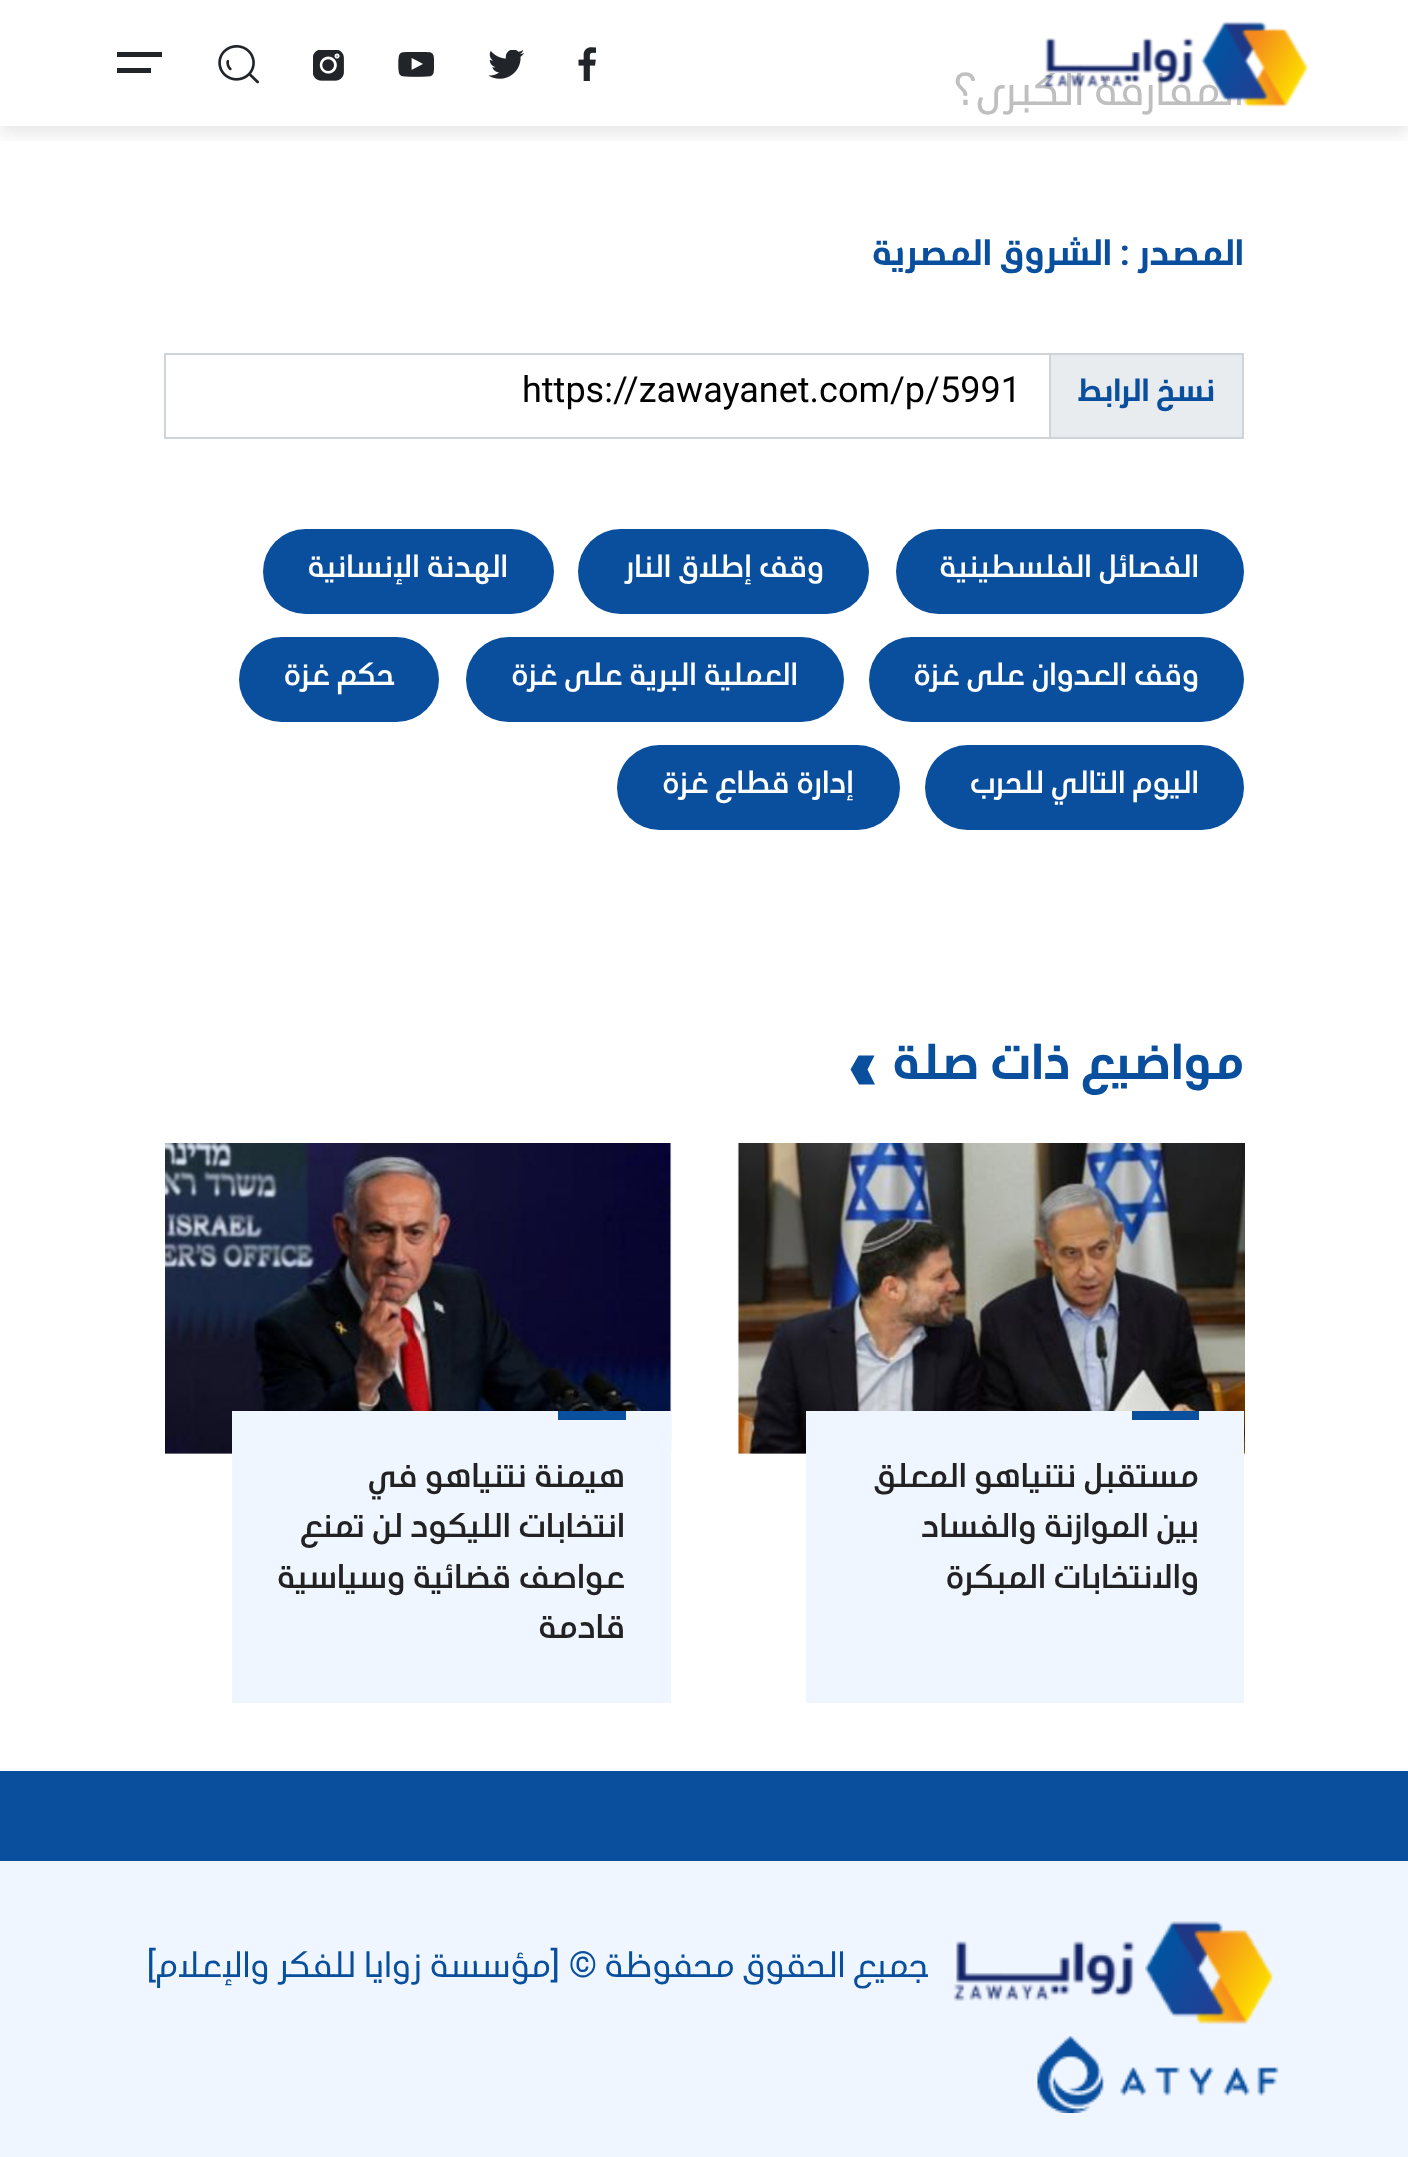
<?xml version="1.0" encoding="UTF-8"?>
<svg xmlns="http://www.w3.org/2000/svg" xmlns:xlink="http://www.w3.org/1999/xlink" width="1408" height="2157">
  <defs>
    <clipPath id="clip1"><rect x="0" y="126" width="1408" height="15" /></clipPath>
  </defs>
  <rect width="100%" height="100%" fill="#ffffff" />
  <g clip-path="url(#clip1)">
    <rect y="7" width="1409" height="126" fill="#000000" fill-opacity="0.1" filter="blur(9px)" />
  </g>
  <image x="578" y="47" width="18" height="34" xlink:href="image2.png" />
  <image x="488" y="50" width="36" height="29" xlink:href="image3.png" />
  <image x="398" y="52" width="36" height="25" xlink:href="image4.png" />
  <image x="313" y="50" width="31" height="31" xlink:href="image5.png" />
  <image x="218" y="45" width="41" height="39" xlink:href="image6.png" />
  <rect x="117" y="52" width="45" height="5" fill="#212529" />
  <rect x="117" y="68" width="34" height="5" fill="#212529" />
  <rect x="1050" y="354" width="193" height="84" fill="#e9ecef" stroke="#ced4da" stroke-width="2" />
  <rect x="165" y="354" width="885" height="84" fill="none" stroke="#ced4da" stroke-width="2" />
  <rect x="896" y="529" width="348" height="85" rx="42.5" fill="#0a4f9e" />
  <rect x="578" y="529" width="291" height="85" rx="42.5" fill="#0a4f9e" />
  <rect x="263" y="529" width="291" height="85" rx="42.5" fill="#0a4f9e" />
  <rect x="869" y="637" width="375" height="85" rx="42.5" fill="#0a4f9e" />
  <rect x="466" y="637" width="378" height="85" rx="42.5" fill="#0a4f9e" />
  <rect x="239" y="637" width="200" height="85" rx="42.5" fill="#0a4f9e" />
  <rect x="925" y="745" width="319" height="85" rx="42.5" fill="#0a4f9e" />
  <rect x="617" y="745" width="283" height="85" rx="42.5" fill="#0a4f9e" />
  <path d="M 874.5 1055.5 h -16 l -8 14 l 8.5 15 h 16 l -7.5 -15 z" fill="#0a4f9e" />
  <image x="737" y="1143" width="508" height="311" xlink:href="image7.png" />
  <rect x="806" y="1411" width="438" height="292" fill="#eff6ff" />
  <rect x="1132" y="1411" width="67" height="9" fill="#0a4f9e" />
  <image x="165" y="1143" width="507" height="311" xlink:href="image8.png" />
  <rect x="232" y="1411" width="439" height="292" fill="#eff6ff" />
  <rect x="558" y="1411" width="68" height="9" fill="#0a4f9e" />
  <rect y="1771" width="1408" height="90" fill="#0a4f9e" />
  <rect y="1861" width="1408" height="296" fill="#eff6ff" />
  <image x="953" y="1921" width="321" height="104" xlink:href="image9.png" />
  <image x="1037" y="2036" width="242" height="77" xlink:href="image10.png" />
  <text x="1244" y="105" style="font-family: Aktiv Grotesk; font-size: 45px; direction: rtl; fill: #bfbfbf">المفارقة الكبرى؟</text>
  <image x="1044" y="21" width="265" height="86" xlink:href="image1.png" />
  <text x="1244" y="265" style="font-family: Aktiv Grotesk; font-size: 36px; font-weight: bold; direction: rtl; fill: #0a4f9e">المصدر</text>
  <text x="1130" y="265" style="font-family: Roboto; font-size: 36px; font-weight: bold; direction: rtl; fill: #0a4f9e">:</text>
  <text x="1112" y="265" style="font-family: Aktiv Grotesk; font-size: 36px; font-weight: bold; direction: rtl; fill: #0a4f9e">الشروق المصرية</text>
  <text x="1215" y="401" style="font-family: Aktiv Grotesk; font-size: 31.5px; font-weight: bold; direction: rtl; fill: #0a4f9e">نسخ الرابط</text>
  <text x="522" y="402" style="font-family: Roboto; font-size: 36px; fill: #000000">https://zawayanet.com/p/5991</text>
  <text x="1199" y="577" style="font-family: Aktiv Grotesk; font-size: 31.5px; font-weight: 500; direction: rtl; fill: #ffffff">الفصائل الفلسطينية</text>
  <text x="824" y="577" style="font-family: Aktiv Grotesk; font-size: 31.5px; font-weight: 500; direction: rtl; fill: #ffffff">وقف إطلاق النار</text>
  <text x="508" y="577" style="font-family: Aktiv Grotesk; font-size: 31.5px; font-weight: 500; direction: rtl; fill: #ffffff">الهدنة الإنسانية</text>
  <text x="1199" y="685" style="font-family: Aktiv Grotesk; font-size: 31.5px; font-weight: 500; direction: rtl; fill: #ffffff">وقف العدوان على غزة</text>
  <text x="798" y="685" style="font-family: Aktiv Grotesk; font-size: 31.5px; font-weight: 500; direction: rtl; fill: #ffffff">العملية البرية على غزة</text>
  <text x="395" y="685" style="font-family: Aktiv Grotesk; font-size: 31.5px; font-weight: 500; direction: rtl; fill: #ffffff">حكم غزة</text>
  <text x="1199" y="793" style="font-family: Aktiv Grotesk; font-size: 31.5px; font-weight: 500; direction: rtl; fill: #ffffff">اليوم التالي للحرب</text>
  <text x="854" y="793" style="font-family: Aktiv Grotesk; font-size: 31.5px; font-weight: 500; direction: rtl; fill: #ffffff">إدارة قطاع غزة</text>
  <text x="1244" y="1079" style="font-family: Aktiv Grotesk; font-size: 49.5px; font-weight: bold; direction: rtl; fill: #0a4f9e">مواضيع ذات صلة</text>
  <text x="1199" y="1487" style="font-family: Aktiv Grotesk; font-size: 33.75px; font-weight: 500; direction: rtl; fill: #222222">مستقبل نتنياهو المعلق</text>
  <text x="1199" y="1537" style="font-family: Aktiv Grotesk; font-size: 33.75px; font-weight: 500; direction: rtl; fill: #222222">بين الموازنة والفساد</text>
  <text x="1199" y="1588" style="font-family: Aktiv Grotesk; font-size: 33.75px; font-weight: 500; direction: rtl; fill: #222222">والانتخابات المبكرة</text>
  <text x="625" y="1487" style="font-family: Aktiv Grotesk; font-size: 33.75px; font-weight: 500; direction: rtl; fill: #222222">هيمنة نتنياهو في</text>
  <text x="625" y="1537" style="font-family: Aktiv Grotesk; font-size: 33.75px; font-weight: 500; direction: rtl; fill: #222222">انتخابات الليكود لن تمنع</text>
  <text x="625" y="1588" style="font-family: Aktiv Grotesk; font-size: 33.75px; font-weight: 500; direction: rtl; fill: #222222">عواصف قضائية وسياسية</text>
  <text x="625" y="1638" style="font-family: Aktiv Grotesk; font-size: 33.75px; font-weight: 500; direction: rtl; fill: #222222">قادمة</text>
  <text x="929" y="1977" style="font-family: Aktiv Grotesk; font-size: 36px; direction: rtl; fill: #0a4f9e">جميع الحقوق محفوظة</text>
  <text x="597" y="1977" style="font-family: Roboto; font-size: 36px; direction: rtl; fill: #0a4f9e">©</text>
  <text x="560" y="1977" style="font-family: Roboto; font-size: 36px; direction: rtl; fill: #0a4f9e">[</text>
  <text x="551" y="1977" style="font-family: Aktiv Grotesk; font-size: 36px; direction: rtl; fill: #0a4f9e">مؤسسة زوايا للفكر والإعلام</text>
  <text x="156" y="1977" style="font-family: Roboto; font-size: 36px; direction: rtl; fill: #0a4f9e">]</text>
</svg>
